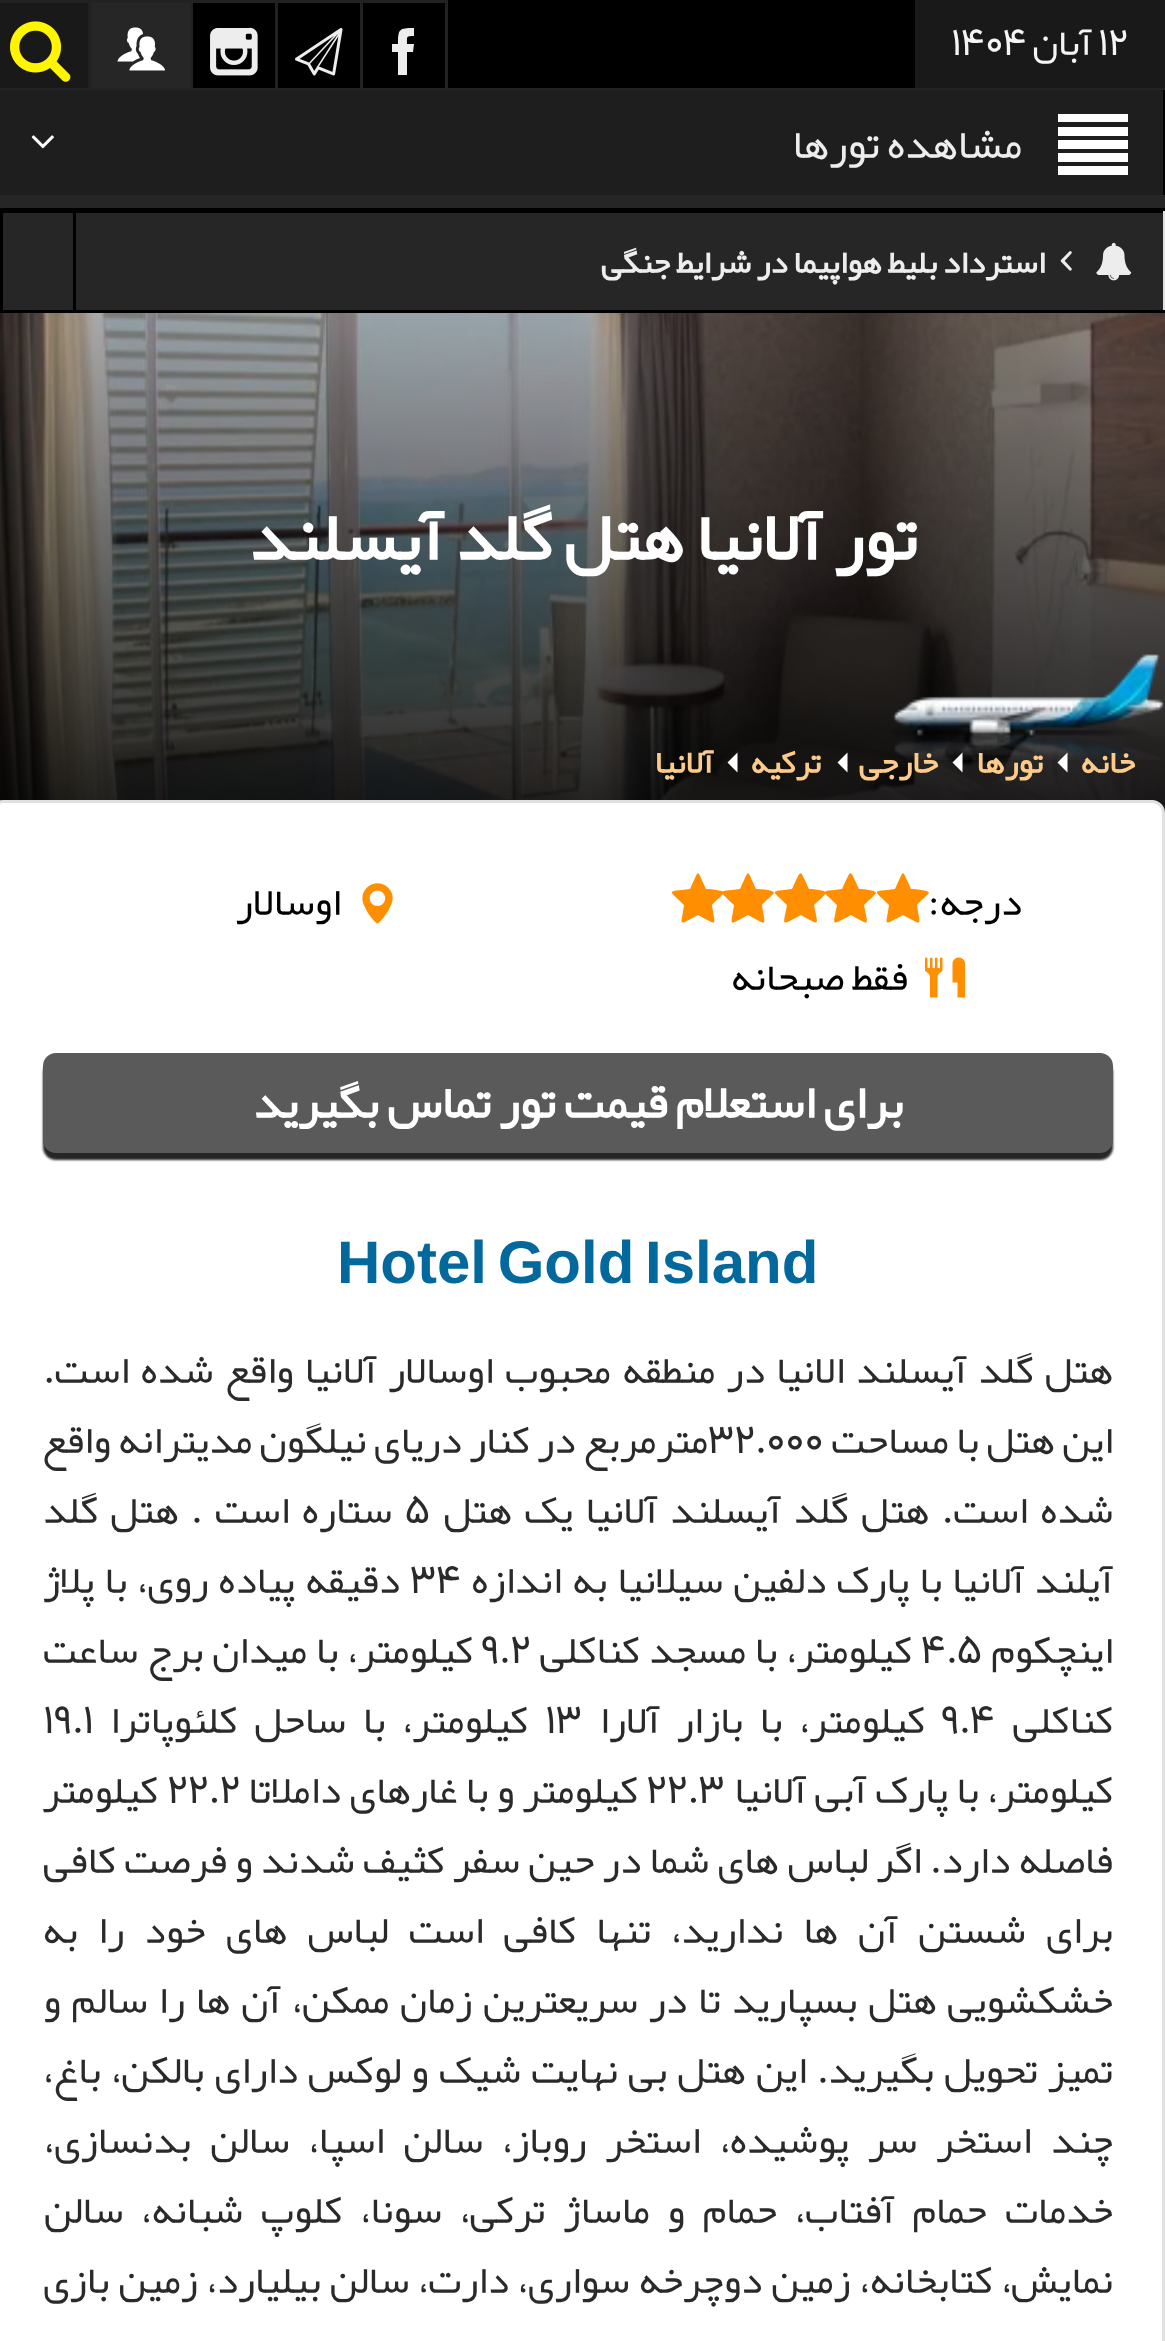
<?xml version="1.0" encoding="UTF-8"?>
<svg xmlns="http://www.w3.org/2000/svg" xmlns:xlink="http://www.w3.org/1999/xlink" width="1165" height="2341">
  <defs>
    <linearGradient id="g1" gradientUnits="userSpaceOnUse" x1="582" y1="187" x2="583" y2="938"><stop offset="0" stop-color="#000000" stop-opacity="0.2" /><stop offset="1" stop-color="#000000" /></linearGradient>
  </defs>
  <rect width="100%" height="100%" fill="#000000" />
  <rect y="88" width="1165" height="2" fill="#222222" />
  <rect x="915" width="250" height="88" fill="#1a1919" />
  <rect width="448" height="3" fill="#222222" />
  <rect x="445" width="3" height="88" fill="#222222" />
  <rect x="360" width="3" height="88" fill="#222222" />
  <path d="M 407 75 v -23 h 6 l 1 -8 h -7 c 0 -8 -1 -8 7 -8 v -8 c -15 0 -16 1 -16 16 h -6 v 8 h 6 v 23 z" fill="#ededed" />
  <rect x="275" width="3" height="88" fill="#222222" />
  <image x="295" y="28" width="48" height="48" xlink:href="image1.png" />
  <rect x="190" width="3" height="88" fill="#222222" />
  <image x="210" y="27" width="48" height="49" xlink:href="image2.png" />
  <rect x="91" y="3" width="99" height="85" fill="#262626" />
  <rect x="88" width="3" height="88" fill="#222222" />
  <image x="117" y="27" width="48" height="44" xlink:href="image3.png" />
  <rect y="3" width="88" height="85" fill="#1a1919" />
  <image x="10" y="21" width="61" height="61" xlink:href="image4.png" />
  <rect y="195" width="1165" height="13" fill="#262626" />
  <rect x="1163" y="210" width="2" height="103" fill="#e1e1e1" />
  <rect x="1163" y="210" width="2" height="1" fill="#000000" />
  <rect y="90" width="1163" height="105" fill="#1e1e1e" />
  <path d="M 1058 114 v 8 h 70 v -8 z m 0 13 v 9 h 70 v -9 z m 0 13 v 9 h 70 v -9 z m 0 13 v 9 h 70 v -9 z m 0 13 v 9 h 70 v -9 z" fill="#ffffff" />
  <image x="31" y="135" width="23" height="14" xlink:href="image5.png" />
  <rect x="3" y="213" width="1160" height="97" fill="#262626" />
  <rect x="1163" y="310" width="2" height="3" fill="#000000" />
  <rect x="73" y="213" width="3" height="97" fill="#000000" />
  <image x="1096" y="242" width="36" height="39" xlink:href="image6.png" />
  <image x="1060" y="251" width="12" height="20" xlink:href="image7.png" />
  <image x="0" y="313" width="1165" height="500" xlink:href="image8.png" />
  <rect y="313" width="1165" height="500" fill="url(#g1)" />
  <image x="892" y="654" width="272" height="106" xlink:href="image9.png" />
  <path d="M 1067.5 752.5 v 20 l -10 -10 z" fill="#ffffff" />
  <path d="M 962.5 752.5 v 20 l -10 -10 z" fill="#ffffff" />
  <path d="M 847.5 752.5 v 20 l -10 -10 z" fill="#ffffff" />
  <path d="M 737.5 752.5 v 20 l -10 -10 z" fill="#ffffff" />
  <rect x="-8.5" y="801.5" width="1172" height="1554" rx="11.5" fill="#ffffff" stroke="#e1e1e1" stroke-width="3" />
  <path d="M 929 893 c 0 1 -11 10 -12 12 c 3 22 7 21 -14 10 c -21 11 -17 12 -14 -10 c -16 -16 -18 -13 6 -16 c 10 -21 6 -21 16 0 c 3 0 18 1 18 4 z" fill="#ff8f00" />
  <path d="M 876 893 c 0 1 -10 10 -12 12 c 4 22 7 21 -13 10 c -21 11 -18 12 -14 -10 c -16 -16 -18 -13 5 -16 c 10 -21 7 -21 17 0 c 3 0 17 1 17 4 z" fill="#ff8f00" />
  <path d="M 826 893 c 0 1 -10 10 -12 12 c 4 22 7 21 -13 10 c -21 11 -18 12 -14 -10 c -16 -16 -18 -13 5 -16 c 10 -21 7 -21 17 0 c 3 0 17 1 17 4 z" fill="#ff8f00" />
  <path d="M 774 893 c 0 1 -11 10 -12 12 c 3 22 7 21 -14 10 c -21 11 -17 12 -14 -10 c -16 -16 -18 -13 6 -16 c 10 -21 6 -21 16 0 c 3 0 18 1 18 4 z" fill="#ff8f00" />
  <path d="M 724 893 c 0 1 -11 10 -12 12 c 3 22 7 21 -14 10 c -21 11 -17 12 -14 -10 c -16 -16 -18 -13 6 -16 c 10 -21 6 -21 16 0 c 3 0 18 1 18 4 z" fill="#ff8f00" />
  <image x="362" y="883" width="31" height="41" xlink:href="image10.png" />
  <image x="925" y="957" width="40" height="41" xlink:href="image11.png" />
  <rect x="43" y="1060" width="1070" height="100" rx="13" fill="#262626" filter="blur(1px)" />
  <rect x="43" y="1053" width="1070" height="100" rx="13" fill="#5a5a5a" />
  <text x="1098" y="55" style="font-family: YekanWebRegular; font-size: 38px; fill: #f5f5f5">12</text>
  <text x="1092" y="55" style="font-family: YekanWebRegular; font-size: 38px; direction: rtl; fill: #f5f5f5">آبان</text>
  <text x="951" y="55" style="font-family: YekanWebRegular; font-size: 38px; fill: #f5f5f5">1404</text>
  <text x="1022" y="158" style="font-family: YekanWebRegular; font-size: 42.5px; direction: rtl; fill: #ededed">مشاهده تورها</text>
  <text x="1045" y="273" style="font-family: YekanWebRegular; font-size: 32.5px; font-weight: bold; direction: rtl; fill: #ededed">استرداد بلیط هواپیما در شرایط جنگی</text>
  <text x="917" y="560" style="font-family: YekanWebRegular; font-size: 70px; font-weight: bold; direction: rtl; fill: #ffffff">تور آلانیا هتل گلد آیسلند</text>
  <text x="1135" y="773" style="font-family: YekanWebRegular; font-size: 32.5px; font-weight: bold; direction: rtl; fill: #fdcb89">خانه</text>
  <text x="1043" y="773" style="font-family: YekanWebRegular; font-size: 32.5px; font-weight: bold; direction: rtl; fill: #fdcb89">تورها</text>
  <text x="938" y="773" style="font-family: YekanWebRegular; font-size: 32.5px; font-weight: bold; direction: rtl; fill: #fdcb89">خارجی</text>
  <text x="821" y="773" style="font-family: YekanWebRegular; font-size: 32.5px; font-weight: bold; direction: rtl; fill: #fdcb89">ترکیه</text>
  <text x="713" y="773" style="font-family: YekanWebRegular; font-size: 32.5px; font-weight: bold; direction: rtl; fill: #fdcb89">آلانیا</text>
  <text x="1022" y="915" style="font-family: YekanWebRegular; font-size: 40px; direction: rtl; fill: #000000">درجه:</text>
  <text x="341" y="915" style="font-family: YekanWebRegular; font-size: 40px; direction: rtl; fill: #000000">اوسالار</text>
  <text x="908" y="990" style="font-family: YekanWebRegular; font-size: 40px; direction: rtl; fill: #000000">فقط صبحانه</text>
  <text x="903" y="1118" style="font-family: YekanWebRegular; font-size: 47.5px; font-weight: bold; direction: rtl; fill: #ffffff">برای استعلام قیمت تور تماس بگیرید</text>
  <text x="337" y="1283" word-spacing="-6" style="font-family: Liberation Sans; font-size: 60px; font-weight: bold; fill: #03689b">Hotel Gold Island</text>
  <text x="1113" y="1383" word-spacing="4.4" style="font-family: YekanWebRegular; font-size: 40px; direction: rtl; fill: #2a2a2a">هتل گلد آیسلند الانیا در منطقه محبوب اوسالار آلانیا واقع شده است.</text>
  <text x="1113" y="1453" word-spacing="0.5" style="font-family: YekanWebRegular; font-size: 40px; direction: rtl; fill: #2a2a2a">این هتل با مساحت</text>
  <text x="708" y="1453" style="font-family: YekanWebRegular; font-size: 40px; fill: #2a2a2a">32.000</text>
  <text x="708" y="1453" word-spacing="0.5" style="font-family: YekanWebRegular; font-size: 40px; direction: rtl; fill: #2a2a2a">مترمربع در کنار دریای نیلگون مدیترانه واقع</text>
  <text x="1113" y="1523" word-spacing="5.5" style="font-family: YekanWebRegular; font-size: 40px; direction: rtl; fill: #2a2a2a">شده است. هتل گلد آیسلند آلانیا یک هتل</text>
  <text x="405" y="1523" style="font-family: YekanWebRegular; font-size: 40px; fill: #2a2a2a">5</text>
  <text x="392" y="1523" word-spacing="5.5" style="font-family: YekanWebRegular; font-size: 40px; direction: rtl; fill: #2a2a2a">ستاره است . هتل گلد</text>
  <text x="1113" y="1593" word-spacing="3.25" style="font-family: YekanWebRegular; font-size: 40px; direction: rtl; fill: #2a2a2a">آیلند آلانیا با پارک دلفین سیلانیا به اندازه</text>
  <text x="410" y="1593" style="font-family: YekanWebRegular; font-size: 40px; fill: #2a2a2a">34</text>
  <text x="400" y="1593" word-spacing="3.25" style="font-family: YekanWebRegular; font-size: 40px; direction: rtl; fill: #2a2a2a">دقیقه پیاده روی، با پلاژ</text>
  <text x="1113" y="1663" style="font-family: YekanWebRegular; font-size: 40px; direction: rtl; fill: #2a2a2a">اینچکوم</text>
  <text x="921" y="1663" style="font-family: YekanWebRegular; font-size: 40px; fill: #2a2a2a">4.5</text>
  <text x="912" y="1663" word-spacing="2" style="font-family: YekanWebRegular; font-size: 40px; direction: rtl; fill: #2a2a2a">کیلومتر، با مسجد کناکلی</text>
  <text x="481" y="1663" style="font-family: YekanWebRegular; font-size: 40px; fill: #2a2a2a">9.2</text>
  <text x="473" y="1663" word-spacing="2" style="font-family: YekanWebRegular; font-size: 40px; direction: rtl; fill: #2a2a2a">کیلومتر، با میدان برج ساعت</text>
  <text x="1113" y="1733" style="font-family: YekanWebRegular; font-size: 40px; direction: rtl; fill: #2a2a2a">کناکلی</text>
  <text x="941" y="1733" style="font-family: YekanWebRegular; font-size: 40px; fill: #2a2a2a">9.4</text>
  <text x="925" y="1733" word-spacing="10" style="font-family: YekanWebRegular; font-size: 40px; direction: rtl; fill: #2a2a2a">کیلومتر، با بازار آلارا</text>
  <text x="545" y="1733" style="font-family: YekanWebRegular; font-size: 40px; fill: #2a2a2a">13</text>
  <text x="528" y="1733" word-spacing="10" style="font-family: YekanWebRegular; font-size: 40px; direction: rtl; fill: #2a2a2a">کیلومتر، با ساحل کلئوپاترا</text>
  <text x="43" y="1733" style="font-family: YekanWebRegular; font-size: 40px; fill: #2a2a2a">19.1</text>
  <text x="1113" y="1803" word-spacing="1.5" style="font-family: YekanWebRegular; font-size: 40px; direction: rtl; fill: #2a2a2a">کیلومتر، با پارک آبی آلانیا</text>
  <text x="646" y="1803" style="font-family: YekanWebRegular; font-size: 40px; fill: #2a2a2a">22.3</text>
  <text x="638" y="1803" word-spacing="1.5" style="font-family: YekanWebRegular; font-size: 40px; direction: rtl; fill: #2a2a2a">کیلومتر و با غارهای داملاتا</text>
  <text x="167" y="1803" style="font-family: YekanWebRegular; font-size: 40px; fill: #2a2a2a">22.2</text>
  <text x="158" y="1803" style="font-family: YekanWebRegular; font-size: 40px; direction: rtl; fill: #2a2a2a">کیلومتر</text>
  <text x="1113" y="1873" word-spacing="1.4" style="font-family: YekanWebRegular; font-size: 40px; direction: rtl; fill: #2a2a2a">فاصله دارد. اگر لباس های شما در حین سفر کثیف شدند و فرصت کافی</text>
  <text x="1113" y="1943" word-spacing="13.25" style="font-family: YekanWebRegular; font-size: 40px; direction: rtl; fill: #2a2a2a">برای شستن آن ها ندارید، تنها کافی است لباس های خود را به</text>
  <text x="1113" y="2013" word-spacing="4" style="font-family: YekanWebRegular; font-size: 40px; direction: rtl; fill: #2a2a2a">خشکشویی هتل بسپارید تا در سریعترین زمان ممکن، آن ها را سالم و</text>
  <text x="1113" y="2083" word-spacing="3.25" style="font-family: YekanWebRegular; font-size: 40px; direction: rtl; fill: #2a2a2a">تمیز تحویل بگیرید. این هتل بی نهایت شیک و لوکس دارای بالکن، باغ،</text>
  <text x="1113" y="2153" word-spacing="12.25" style="font-family: YekanWebRegular; font-size: 40px; direction: rtl; fill: #2a2a2a">چند استخر سر پوشیده، استخر روباز، سالن اسپا، سالن بدنسازی،</text>
  <text x="1113" y="2223" word-spacing="11" style="font-family: YekanWebRegular; font-size: 40px; direction: rtl; fill: #2a2a2a">خدمات حمام آفتاب، حمام و ماساژ ترکی، سونا، کلوپ شبانه، سالن</text>
  <text x="1113" y="2293" word-spacing="2" style="font-family: YekanWebRegular; font-size: 40px; direction: rtl; fill: #2a2a2a">نمایش، کتابخانه، زمین دوچرخه سواری، دارت، سالن بیلیارد، زمین بازی</text>
</svg>
